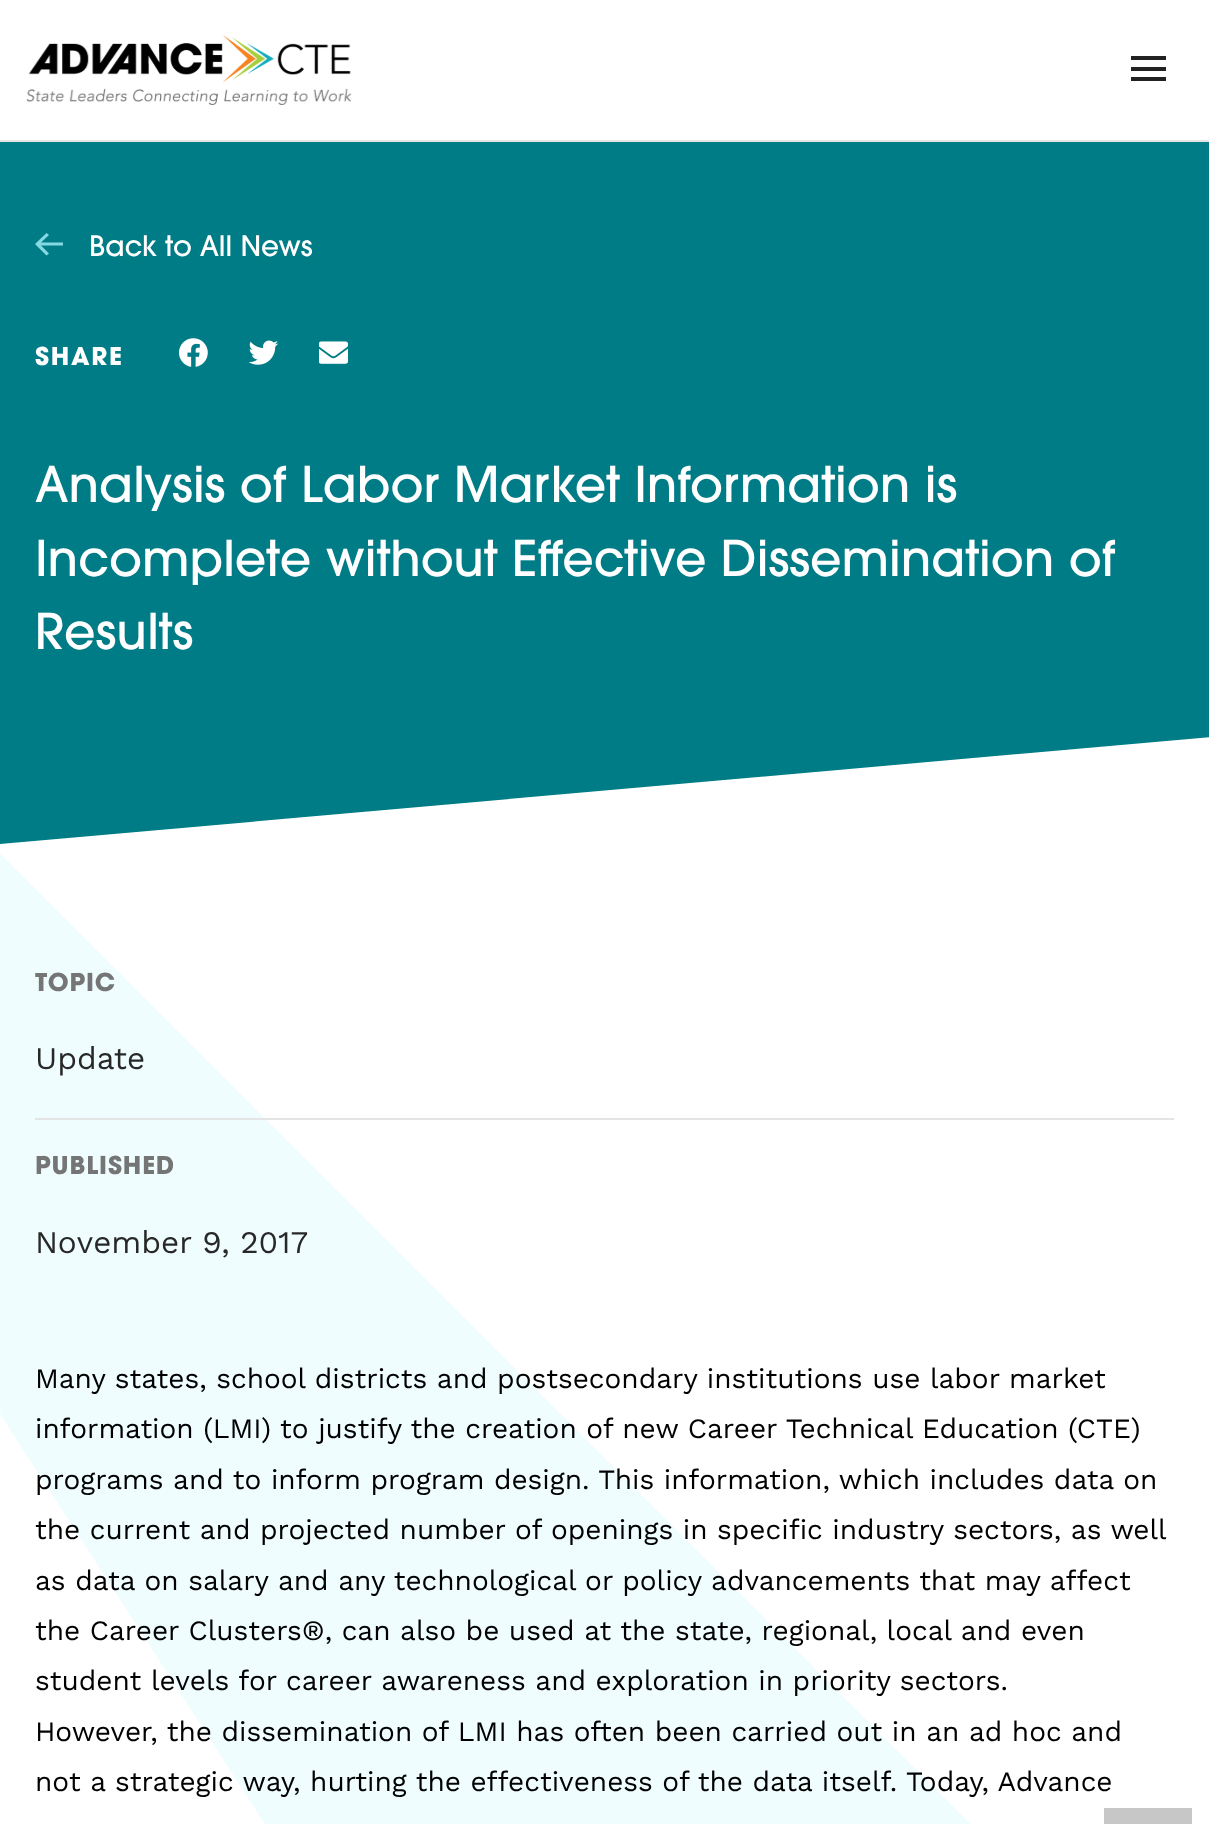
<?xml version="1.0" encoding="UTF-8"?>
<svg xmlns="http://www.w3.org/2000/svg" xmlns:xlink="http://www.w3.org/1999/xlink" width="1209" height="1824">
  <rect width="100%" height="100%" fill="#ffffff" />
  <rect y="140" width="1209" height="2" fill="#e4e4e4" />
  <image x="26" y="35" width="326" height="70" xlink:href="image1.png" />
  <rect x="1131" y="67" width="35" height="4" fill="#222222" />
  <rect x="1131" y="56" width="35" height="4" fill="#222222" />
  <rect x="1131" y="77" width="35" height="4" fill="#222222" />
  <rect y="142" width="1209" height="702" fill="#007c86" />
  <path d="M 63 242.5 h -22 l 8 -7.5 l -2.5 -2 l -11.5 11 l 11.5 11.5 l 2.5 -2 l -8 -8 h 22 z" fill="#84d9e2" />
  <image x="179" y="338" width="29" height="29" xlink:href="image2.png" />
  <image x="249" y="340" width="29" height="25" xlink:href="image3.png" />
  <image x="319" y="341" width="29" height="23" xlink:href="image4.png" />
  <path d="M 0 844 v 6 h 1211 v -113 z" fill="#ffffff" />
  <image x="0" y="854" width="971" height="970" xlink:href="image5.png" />
  <rect x="35" y="1118" width="1139" height="2" fill="#e4e4e4" />
  <rect x="1104" y="1808" width="88" height="16" fill="#c7c7c7" />
  <text x="89" y="256" style="font-family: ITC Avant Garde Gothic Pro; font-size: 28px; font-weight: 500; fill: #ffffff">Back to All News</text>
  <text x="35" y="365" style="font-family: ITC Avant Garde Gothic Pro; font-size: 24.5px; font-weight: bold; letter-spacing: 1.75px; fill: #ffffff">SHARE</text>
  <text x="35" y="502" style="font-family: ITC Avant Garde Gothic Pro; font-size: 49px; font-weight: 500; fill: #ffffff">Analysis of Labor Market Information is</text>
  <text x="35" y="576" style="font-family: ITC Avant Garde Gothic Pro; font-size: 49px; font-weight: 500; fill: #ffffff">Incomplete without Effective Dissemination of</text>
  <text x="35" y="649" style="font-family: ITC Avant Garde Gothic Pro; font-size: 49px; font-weight: 500; fill: #ffffff">Results</text>
  <text x="35" y="991" style="font-family: ITC Avant Garde Gothic Pro; font-size: 24.5px; font-weight: bold; letter-spacing: 0.9px; fill: #757575">TOPIC</text>
  <text x="35" y="1069" style="font-family: Work Sans; font-size: 31.5px; fill: #282828">Update</text>
  <text x="35" y="1174" style="font-family: ITC Avant Garde Gothic Pro; font-size: 24.5px; font-weight: bold; letter-spacing: 0.9px; fill: #757575">PUBLISHED</text>
  <text x="35" y="1253" style="font-family: Work Sans; font-size: 31.5px; fill: #282828">November 9, 2017</text>
  <text x="35" y="1388" style="font-family: Work Sans; font-size: 28px; fill: #000000">Many states, school districts and postsecondary institutions use labor market</text>
  <text x="35" y="1438" style="font-family: Work Sans; font-size: 28px; fill: #000000">information (LMI) to justify the creation of new Career Technical Education (CTE)</text>
  <text x="35" y="1489" style="font-family: Work Sans; font-size: 28px; fill: #000000">programs and to inform program design. This information, which includes data on</text>
  <text x="35" y="1539" style="font-family: Work Sans; font-size: 28px; fill: #000000">the current and projected number of openings in specific industry sectors, as well</text>
  <text x="35" y="1590" style="font-family: Work Sans; font-size: 28px; fill: #000000">as data on salary and any technological or policy advancements that may affect</text>
  <text x="35" y="1640" style="font-family: Work Sans; font-size: 28px; fill: #000000">the Career Clusters®, can also be used at the state, regional, local and even</text>
  <text x="35" y="1690" style="font-family: Work Sans; font-size: 28px; fill: #000000">student levels for career awareness and exploration in priority sectors.</text>
  <text x="35" y="1741" style="font-family: Work Sans; font-size: 28px; fill: #000000">However, the dissemination of LMI has often been carried out in an ad hoc and</text>
  <text x="35" y="1791" style="font-family: Work Sans; font-size: 28px; fill: #000000">not a strategic way, hurting the effectiveness of the data itself. Today, Advance</text>
</svg>
